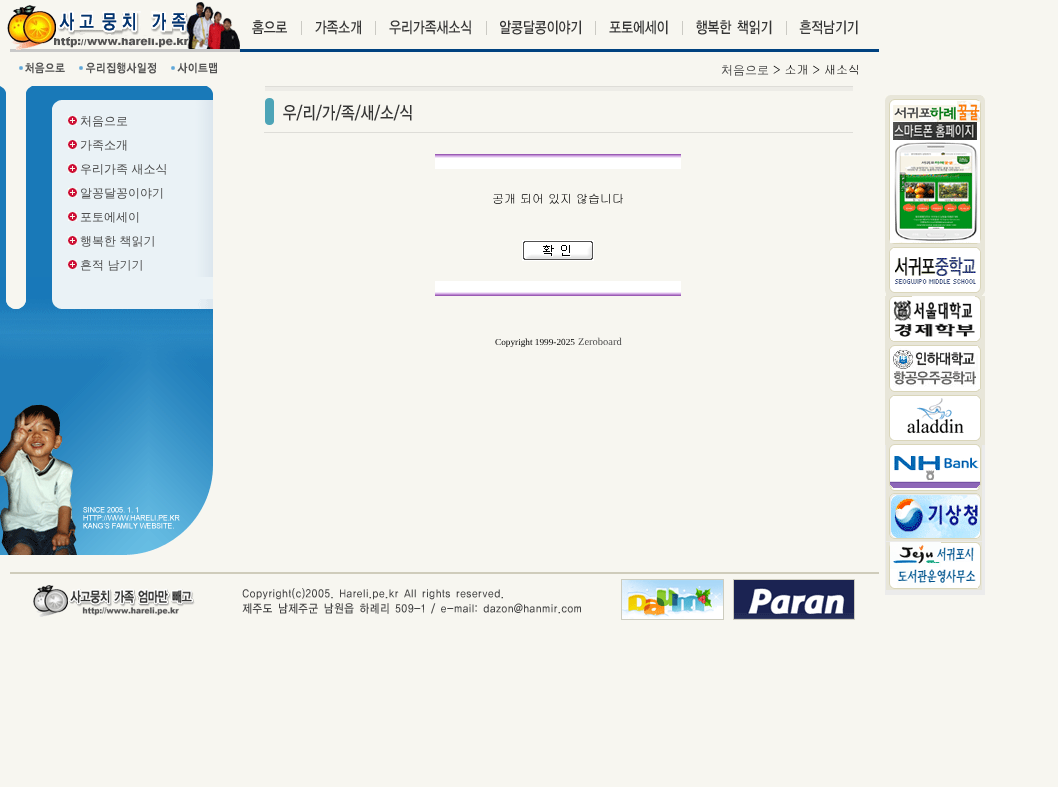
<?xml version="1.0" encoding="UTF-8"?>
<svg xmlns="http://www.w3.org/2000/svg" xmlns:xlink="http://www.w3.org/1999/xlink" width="1058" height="787">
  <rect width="100%" height="100%" fill="#f7f6f0" />
  <image x="7" y="2" width="233" height="50" xlink:href="image1.png" />
  <image x="19" y="62" width="46" height="12" xlink:href="image2.png" />
  <image x="79" y="62" width="77" height="12" xlink:href="image3.png" />
  <image x="171" y="62" width="46" height="12" xlink:href="image4.png" />
  <image x="252" y="20" width="50" height="15" xlink:href="image5.png" />
  <image x="315" y="20" width="61" height="15" xlink:href="image6.png" />
  <image x="389" y="20" width="98" height="15" xlink:href="image7.png" />
  <image x="500" y="20" width="96" height="15" xlink:href="image8.png" />
  <image x="609" y="20" width="74" height="15" xlink:href="image9.png" />
  <image x="696" y="20" width="76" height="15" xlink:href="image10.png" />
  <image x="786" y="20" width="72" height="15" xlink:href="image11.png" />
  <rect x="240" y="49" width="639" height="3" fill="#004280" />
  <image x="0" y="86" width="213" height="23" xlink:href="image12.png" />
  <image x="0" y="109" width="213" height="168" xlink:href="image13.png" />
  <image x="68" y="116" width="9" height="9" xlink:href="image14.png" />
  <image x="68" y="140" width="9" height="9" xlink:href="image14.png" />
  <image x="68" y="164" width="9" height="9" xlink:href="image14.png" />
  <image x="68" y="188" width="9" height="9" xlink:href="image14.png" />
  <image x="68" y="212" width="9" height="9" xlink:href="image14.png" />
  <image x="68" y="236" width="9" height="9" xlink:href="image14.png" />
  <image x="68" y="260" width="9" height="9" xlink:href="image14.png" />
  <image x="0" y="277" width="213" height="278" xlink:href="image15.png" />
  <image x="264" y="86" width="589" height="47" xlink:href="image16.png" />
  <image x="435" y="154" width="246" height="15" xlink:href="image17.png" />
  <image x="522" y="240" width="72" height="21" xlink:href="image18.png" />
  <image x="435" y="281" width="246" height="15" xlink:href="image19.png" />
  <image x="10" y="572" width="869" height="48" xlink:href="image20.png" />
  <image x="885" y="95" width="100" height="500" xlink:href="image21.png" />
  <text x="80" y="125" style="font-family: WenQuanYi Zen Hei; font-size: 12px; font-weight: 500; fill: #4d4d4d">처음으로</text>
  <text x="80" y="149" style="font-family: WenQuanYi Zen Hei; font-size: 12px; font-weight: 500; fill: #4d4d4d">가족소개</text>
  <text x="80" y="173" style="font-family: WenQuanYi Zen Hei; font-size: 12px; font-weight: 500; fill: #4d4d4d">우리가족 새소식</text>
  <text x="80" y="197" style="font-family: WenQuanYi Zen Hei; font-size: 12px; font-weight: 500; fill: #4d4d4d">알꽁달꽁이야기</text>
  <text x="80" y="221" style="font-family: WenQuanYi Zen Hei; font-size: 12px; font-weight: 500; fill: #4d4d4d">포토에세이</text>
  <text x="80" y="245" style="font-family: WenQuanYi Zen Hei; font-size: 12px; font-weight: 500; fill: #4d4d4d">행복한 책읽기</text>
  <text x="80" y="269" style="font-family: WenQuanYi Zen Hei; font-size: 12px; font-weight: 500; fill: #4d4d4d">흔적 남기기</text>
  <text x="721" y="74" style="font-family: WenQuanYi Zen Hei; font-size: 12px; font-weight: 500; fill: #4d4d4d">처음으로</text>
  <text x="773" y="74" style="font-family: Gulim; font-size: 12px; fill: #000000">&gt; 소개 &gt; 새소식</text>
  <text x="492" y="203" style="font-family: Gulim; font-size: 12px; fill: #000000">공개 되어 있지 않습니다</text>
  <text x="495" y="345" style="font-family: Liberation Serif; font-size: 9.25px; fill: #000000">Copyright 1999-2025</text>
  <text x="578" y="345" style="font-family: Liberation Serif; font-size: 10.5px; fill: #4d4d4d">Zeroboard</text>
</svg>
